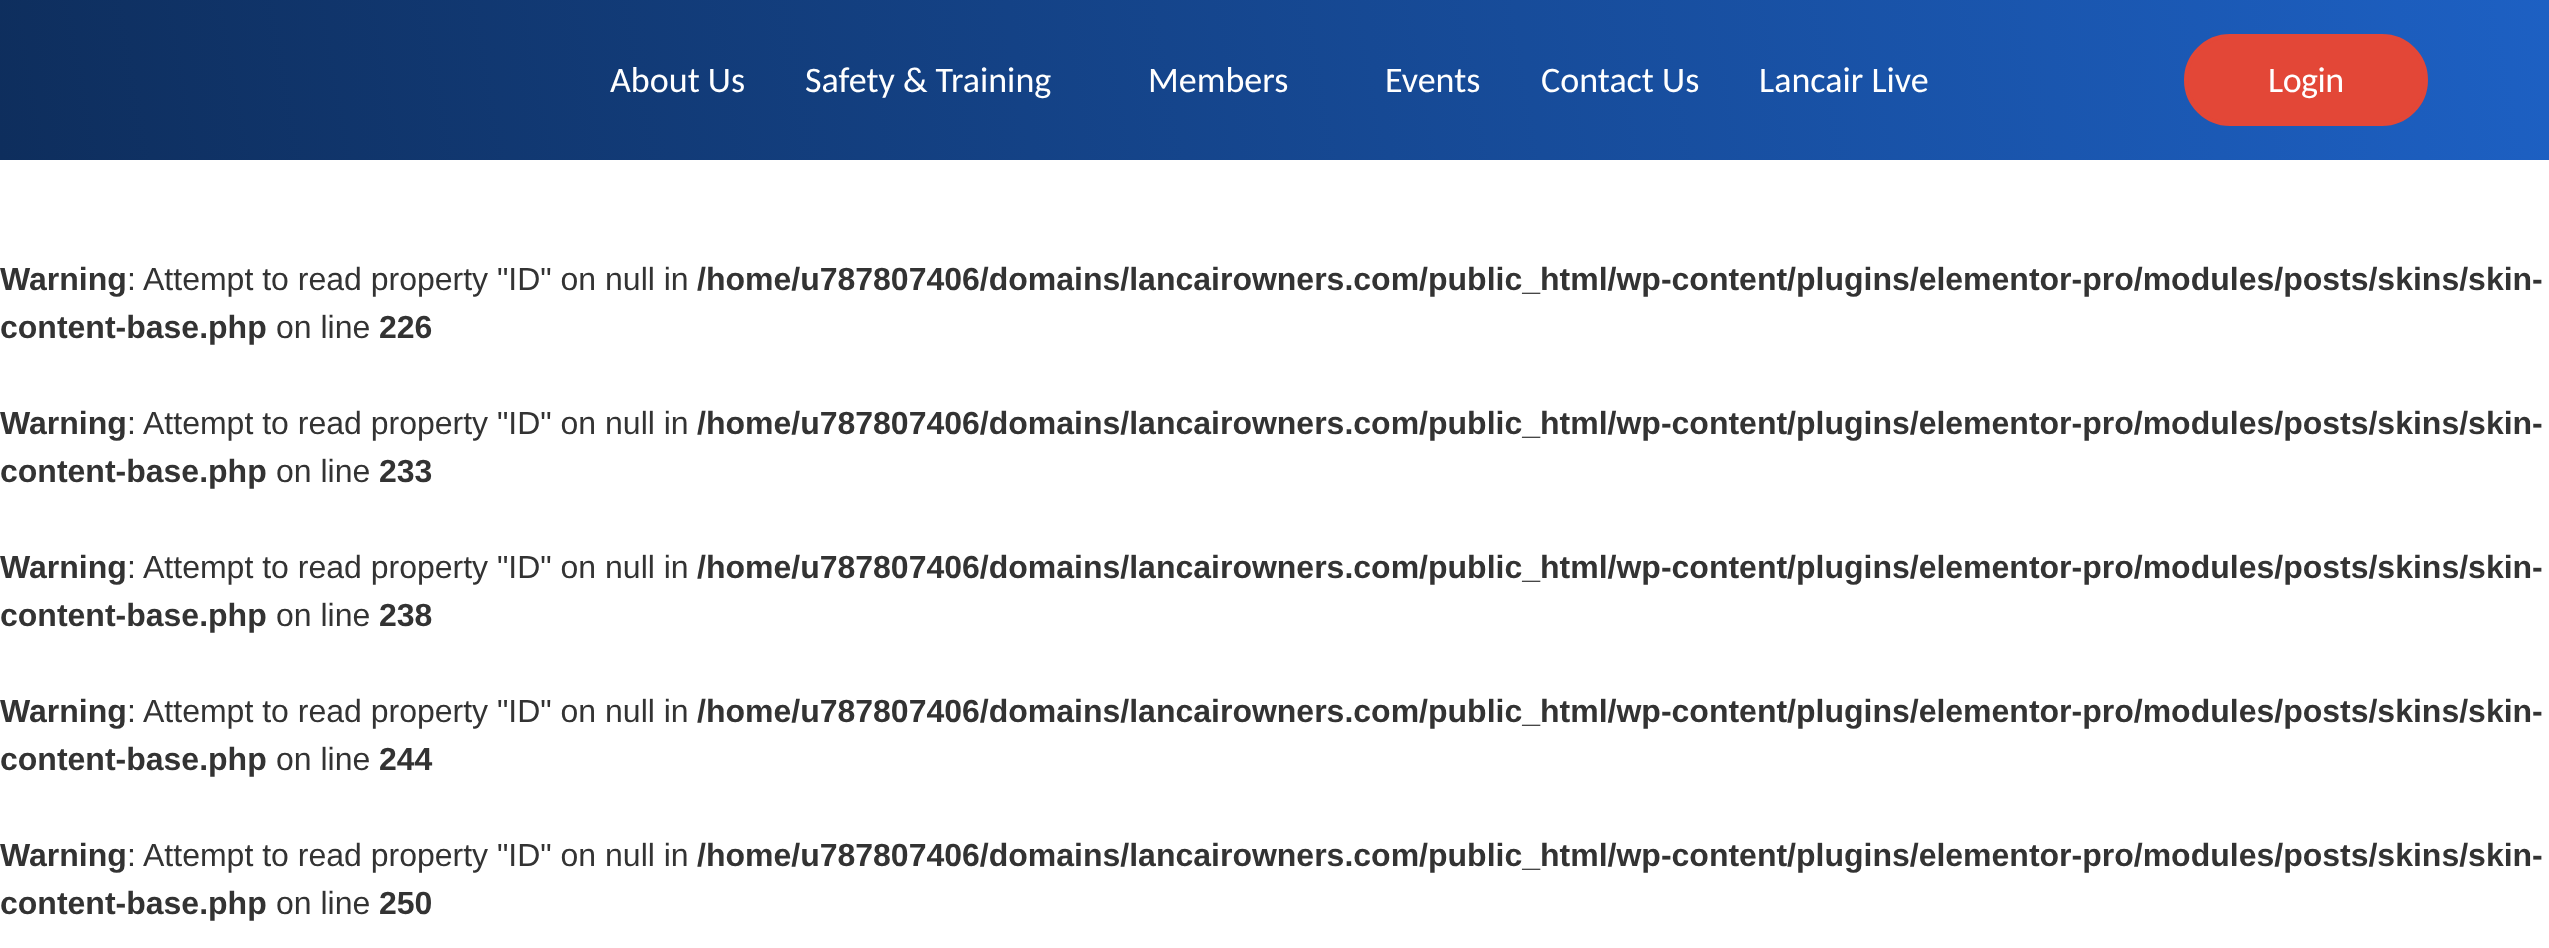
<?xml version="1.0" encoding="UTF-8"?>
<svg xmlns="http://www.w3.org/2000/svg" xmlns:xlink="http://www.w3.org/1999/xlink" width="2549" height="948">
  <defs>
    <linearGradient id="g1" gradientUnits="userSpaceOnUse" x1="25" y1="300" x2="2525" y2="-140"><stop offset="0" stop-color="#0e2e5d" /><stop offset="1" stop-color="#1d60c3" /></linearGradient>
  </defs>
  <rect width="100%" height="100%" fill="#ffffff" />
  <rect width="2549" height="160" fill="url(#g1)" />
  <rect x="2186" y="36" width="240" height="88" rx="44" fill="#e34737" stroke="#e34737" stroke-width="4" />
  <text x="610" y="92" style="font-family: Carlito; font-size: 36px; fill: #ffffff">About Us</text>
  <text x="805" y="92" style="font-family: Carlito; font-size: 36px; fill: #ffffff">Safety &amp; Training</text>
  <text x="1148" y="92" style="font-family: Carlito; font-size: 36px; fill: #ffffff">Members</text>
  <text x="1385" y="92" style="font-family: Carlito; font-size: 36px; fill: #ffffff">Events</text>
  <text x="1541" y="92" style="font-family: Carlito; font-size: 36px; fill: #ffffff">Contact Us</text>
  <text x="1759" y="92" style="font-family: Carlito; font-size: 36px; fill: #ffffff">Lancair Live</text>
  <text x="2268" y="92" style="font-family: Carlito; font-size: 36px; letter-spacing: -0.5px; fill: #ffffff">Login</text>
  <text x="0" y="290" style="font-family: Liberation Sans; font-size: 32px; font-weight: bold; fill: #333333">Warning</text>
  <text x="127" y="290" style="font-family: Liberation Sans; font-size: 32px; fill: #333333">:</text>
  <text x="143" y="290" style="font-family: Liberation Sans; font-size: 32px; fill: #333333">Attempt to read property "ID" on null in</text>
  <text x="697" y="290" style="font-family: Liberation Sans; font-size: 32px; font-weight: bold; fill: #333333">/home/u787807406/domains/lancairowners.com/public_html/wp-content/plugins/elementor-pro/modules/posts/skins/skin-</text>
  <text x="0" y="338" style="font-family: Liberation Sans; font-size: 32px; font-weight: bold; fill: #333333">content-base.php</text>
  <text x="276" y="338" style="font-family: Liberation Sans; font-size: 32px; fill: #333333">on line</text>
  <text x="379" y="338" style="font-family: Liberation Sans; font-size: 32px; font-weight: bold; fill: #333333">226</text>
  <text x="0" y="434" style="font-family: Liberation Sans; font-size: 32px; font-weight: bold; fill: #333333">Warning</text>
  <text x="127" y="434" style="font-family: Liberation Sans; font-size: 32px; fill: #333333">:</text>
  <text x="143" y="434" style="font-family: Liberation Sans; font-size: 32px; fill: #333333">Attempt to read property "ID" on null in</text>
  <text x="697" y="434" style="font-family: Liberation Sans; font-size: 32px; font-weight: bold; fill: #333333">/home/u787807406/domains/lancairowners.com/public_html/wp-content/plugins/elementor-pro/modules/posts/skins/skin-</text>
  <text x="0" y="482" style="font-family: Liberation Sans; font-size: 32px; font-weight: bold; fill: #333333">content-base.php</text>
  <text x="276" y="482" style="font-family: Liberation Sans; font-size: 32px; fill: #333333">on line</text>
  <text x="379" y="482" style="font-family: Liberation Sans; font-size: 32px; font-weight: bold; fill: #333333">233</text>
  <text x="0" y="578" style="font-family: Liberation Sans; font-size: 32px; font-weight: bold; fill: #333333">Warning</text>
  <text x="127" y="578" style="font-family: Liberation Sans; font-size: 32px; fill: #333333">:</text>
  <text x="143" y="578" style="font-family: Liberation Sans; font-size: 32px; fill: #333333">Attempt to read property "ID" on null in</text>
  <text x="697" y="578" style="font-family: Liberation Sans; font-size: 32px; font-weight: bold; fill: #333333">/home/u787807406/domains/lancairowners.com/public_html/wp-content/plugins/elementor-pro/modules/posts/skins/skin-</text>
  <text x="0" y="626" style="font-family: Liberation Sans; font-size: 32px; font-weight: bold; fill: #333333">content-base.php</text>
  <text x="276" y="626" style="font-family: Liberation Sans; font-size: 32px; fill: #333333">on line</text>
  <text x="379" y="626" style="font-family: Liberation Sans; font-size: 32px; font-weight: bold; fill: #333333">238</text>
  <text x="0" y="722" style="font-family: Liberation Sans; font-size: 32px; font-weight: bold; fill: #333333">Warning</text>
  <text x="127" y="722" style="font-family: Liberation Sans; font-size: 32px; fill: #333333">:</text>
  <text x="143" y="722" style="font-family: Liberation Sans; font-size: 32px; fill: #333333">Attempt to read property "ID" on null in</text>
  <text x="697" y="722" style="font-family: Liberation Sans; font-size: 32px; font-weight: bold; fill: #333333">/home/u787807406/domains/lancairowners.com/public_html/wp-content/plugins/elementor-pro/modules/posts/skins/skin-</text>
  <text x="0" y="770" style="font-family: Liberation Sans; font-size: 32px; font-weight: bold; fill: #333333">content-base.php</text>
  <text x="276" y="770" style="font-family: Liberation Sans; font-size: 32px; fill: #333333">on line</text>
  <text x="379" y="770" style="font-family: Liberation Sans; font-size: 32px; font-weight: bold; fill: #333333">244</text>
  <text x="0" y="866" style="font-family: Liberation Sans; font-size: 32px; font-weight: bold; fill: #333333">Warning</text>
  <text x="127" y="866" style="font-family: Liberation Sans; font-size: 32px; fill: #333333">:</text>
  <text x="143" y="866" style="font-family: Liberation Sans; font-size: 32px; fill: #333333">Attempt to read property "ID" on null in</text>
  <text x="697" y="866" style="font-family: Liberation Sans; font-size: 32px; font-weight: bold; fill: #333333">/home/u787807406/domains/lancairowners.com/public_html/wp-content/plugins/elementor-pro/modules/posts/skins/skin-</text>
  <text x="0" y="914" style="font-family: Liberation Sans; font-size: 32px; font-weight: bold; fill: #333333">content-base.php</text>
  <text x="276" y="914" style="font-family: Liberation Sans; font-size: 32px; fill: #333333">on line</text>
  <text x="379" y="914" style="font-family: Liberation Sans; font-size: 32px; font-weight: bold; fill: #333333">250</text>
</svg>
